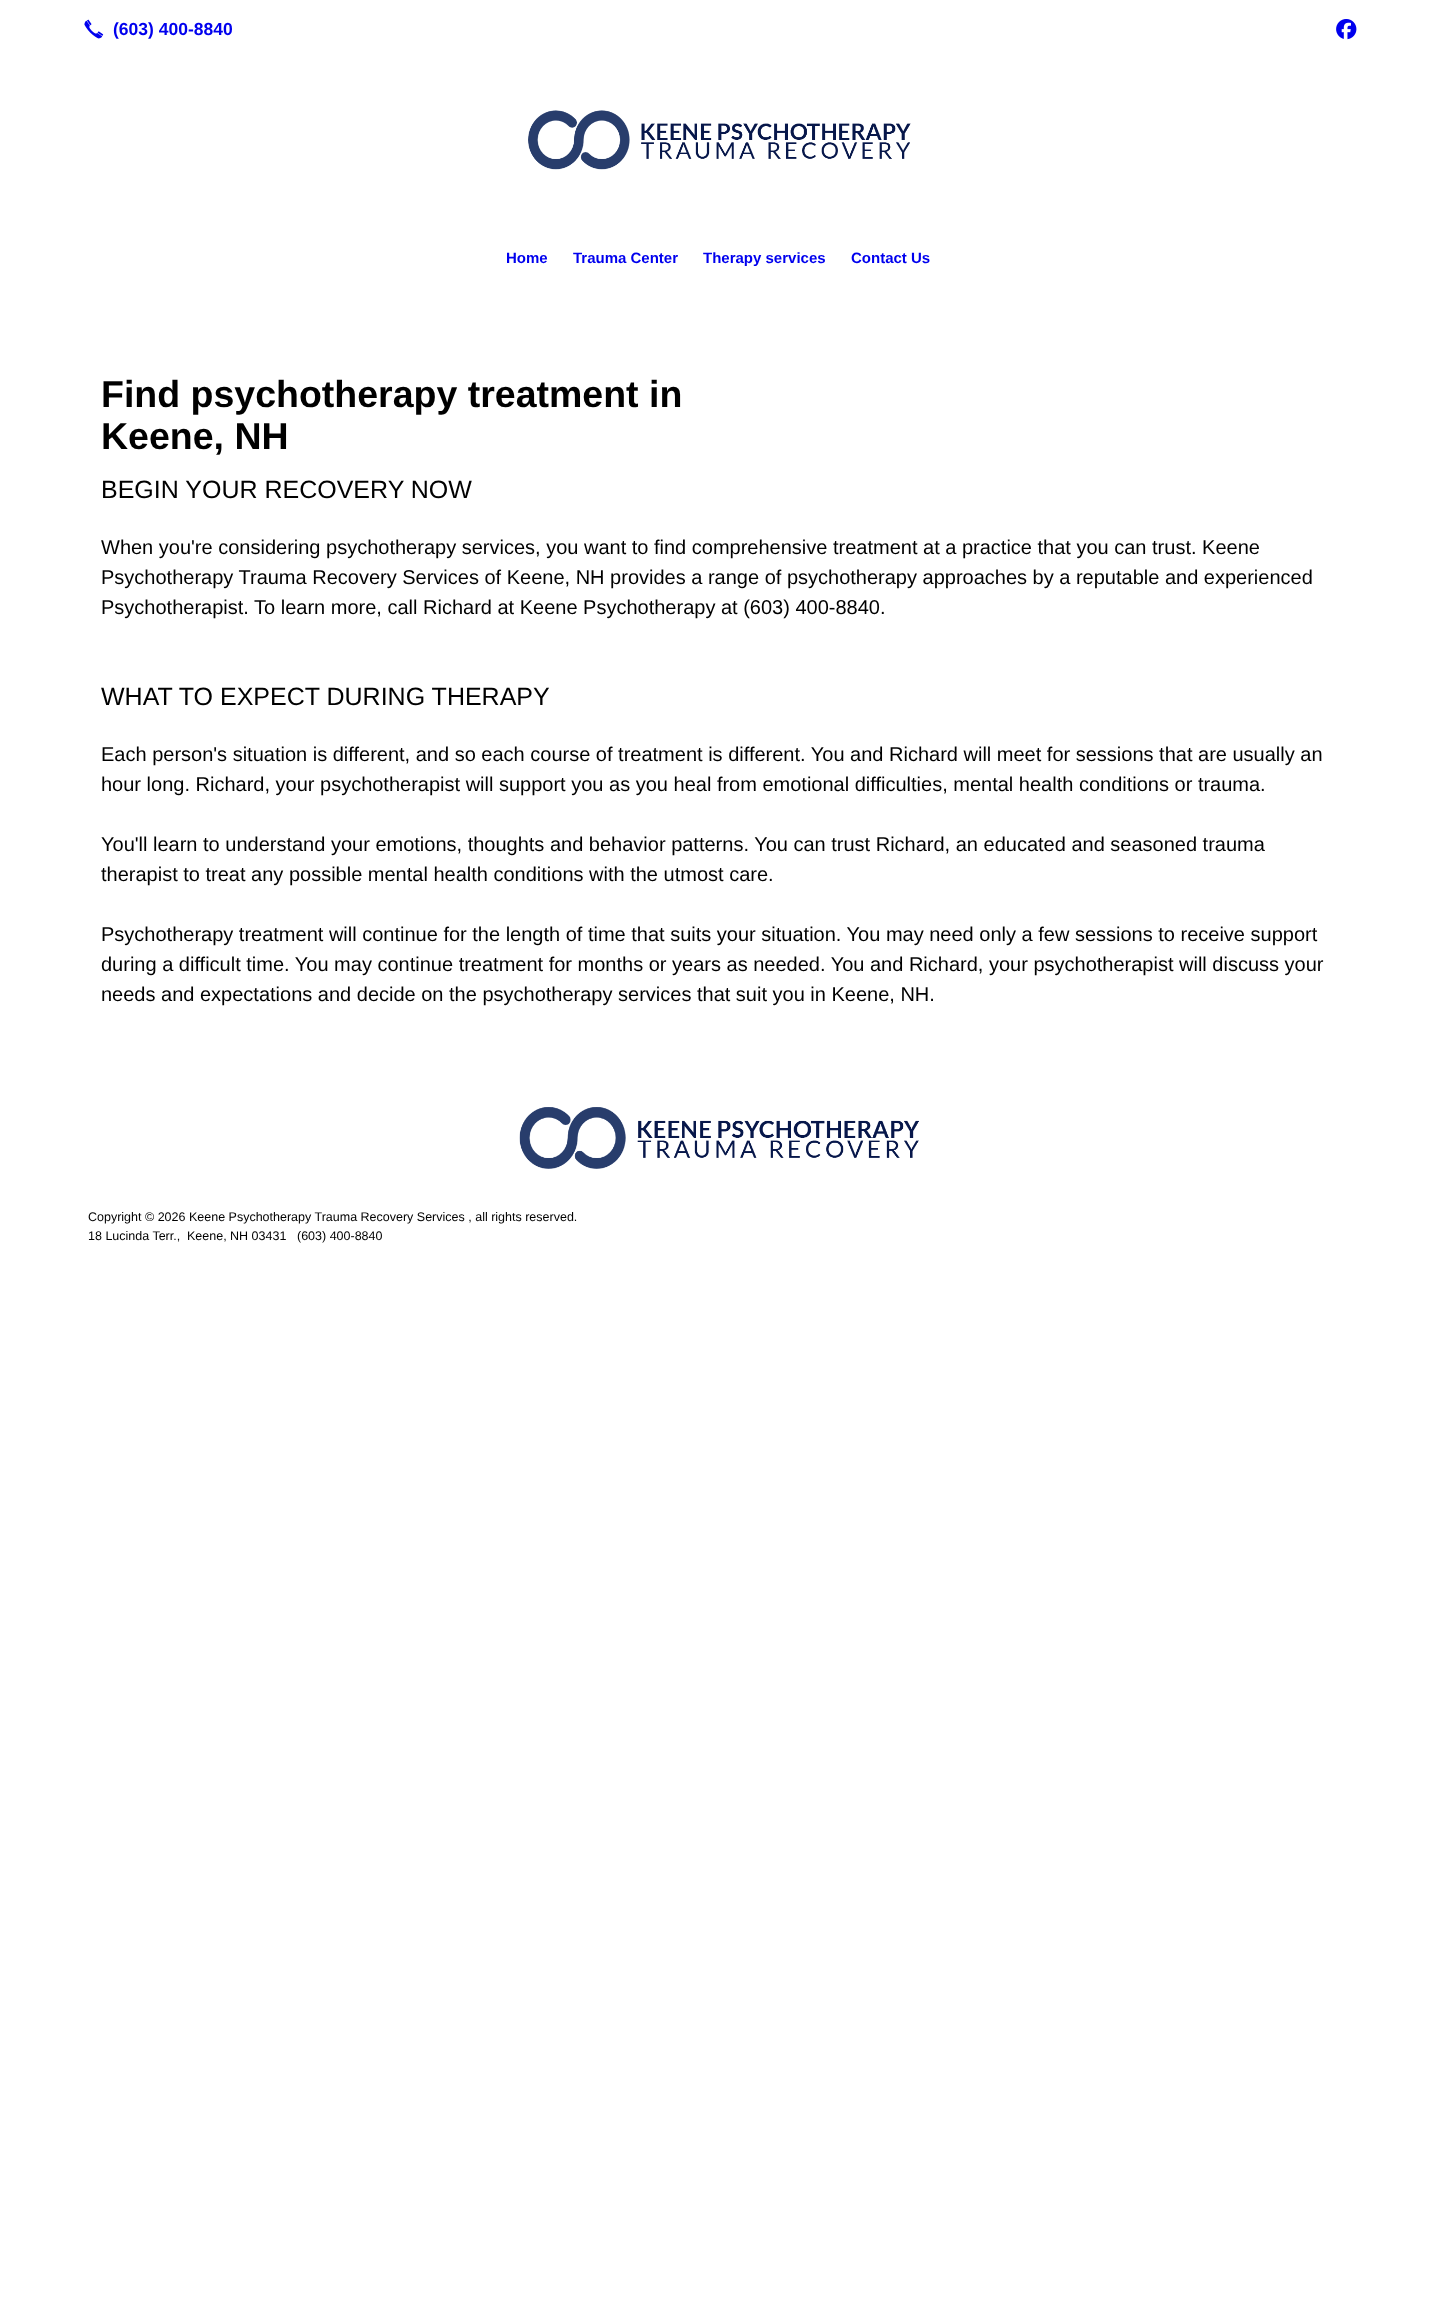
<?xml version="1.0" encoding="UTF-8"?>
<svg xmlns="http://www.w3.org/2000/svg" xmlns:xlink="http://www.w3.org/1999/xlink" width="1436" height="2309">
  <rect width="100%" height="100%" fill="#ffffff" />
  <image x="84" y="19" width="20" height="20" xlink:href="image1.png" />
  <image x="1336" y="19" width="21" height="21" xlink:href="image2.png" />
  <image x="528" y="110" width="383" height="60" xlink:href="image3.png" />
  <image x="519" y="1107" width="400" height="62" xlink:href="image4.png" />
  <text x="113" y="35" style="font-family: Liberation Sans; font-size: 17.5px; font-weight: bold; fill: #0000ee">(603) 400-8840</text>
  <text x="506" y="263" style="font-family: Liberation Sans; font-size: 15px; font-weight: bold; fill: #0000ee">Home</text>
  <text x="573" y="263" style="font-family: Liberation Sans; font-size: 15px; font-weight: bold; fill: #0000ee">Trauma Center</text>
  <text x="703" y="263" style="font-family: Liberation Sans; font-size: 15px; font-weight: bold; fill: #0000ee">Therapy services</text>
  <text x="851" y="263" style="font-family: Liberation Sans; font-size: 15px; font-weight: bold; fill: #0000ee">Contact Us</text>
  <text x="101" y="407" style="font-family: Liberation Sans; font-size: 37.5px; font-weight: bold; fill: #000000">Find psychotherapy treatment in</text>
  <text x="101" y="449" style="font-family: Liberation Sans; font-size: 37.5px; font-weight: bold; fill: #000000">Keene, NH</text>
  <text x="101" y="498" style="font-family: Liberation Sans; font-size: 25px; fill: #000000">BEGIN YOUR RECOVERY NOW</text>
  <text x="101" y="554" style="font-family: Liberation Sans; font-size: 20px; fill: #000000">When you're considering psychotherapy services, you want to find comprehensive treatment at a practice that you can trust. Keene</text>
  <text x="101" y="584" style="font-family: Liberation Sans; font-size: 20px; fill: #000000">Psychotherapy Trauma Recovery Services of Keene, NH provides a range of psychotherapy approaches by a reputable and experienced</text>
  <text x="101" y="614" style="font-family: Liberation Sans; font-size: 20px; fill: #000000">Psychotherapist. To learn more, call Richard at Keene Psychotherapy at (603) 400-8840.</text>
  <text x="101" y="705" style="font-family: Liberation Sans; font-size: 25px; fill: #000000">WHAT TO EXPECT DURING THERAPY</text>
  <text x="101" y="761" style="font-family: Liberation Sans; font-size: 20px; fill: #000000">Each person's situation is different, and so each course of treatment is different. You and Richard will meet for sessions that are usually an</text>
  <text x="101" y="791" style="font-family: Liberation Sans; font-size: 20px; fill: #000000">hour long. Richard, your psychotherapist will support you as you heal from emotional difficulties, mental health conditions or trauma.</text>
  <text x="101" y="851" style="font-family: Liberation Sans; font-size: 20px; fill: #000000">You'll learn to understand your emotions, thoughts and behavior patterns. You can trust Richard, an educated and seasoned trauma</text>
  <text x="101" y="881" style="font-family: Liberation Sans; font-size: 20px; fill: #000000">therapist to treat any possible mental health conditions with the utmost care.</text>
  <text x="101" y="941" style="font-family: Liberation Sans; font-size: 20px; fill: #000000">Psychotherapy treatment will continue for the length of time that suits your situation. You may need only a few sessions to receive support</text>
  <text x="101" y="971" style="font-family: Liberation Sans; font-size: 20px; fill: #000000">during a difficult time. You may continue treatment for months or years as needed. You and Richard, your psychotherapist will discuss your</text>
  <text x="101" y="1001" style="font-family: Liberation Sans; font-size: 20px; fill: #000000">needs and expectations and decide on the psychotherapy services that suit you in Keene, NH.</text>
  <text x="88" y="1221" style="font-family: Liberation Sans; font-size: 12.5px; fill: #000000">Copyright © 2026 Keene Psychotherapy Trauma Recovery Services , all rights reserved.</text>
  <text x="88" y="1240" style="font-family: Liberation Sans; font-size: 12.5px; fill: #000000">18 Lucinda Terr.,</text>
  <text x="187" y="1240" style="font-family: Liberation Sans; font-size: 12.5px; fill: #000000">Keene, NH 03431</text>
  <text x="297" y="1240" style="font-family: Liberation Sans; font-size: 12.5px; fill: #000000">(603) 400-8840</text>
</svg>
